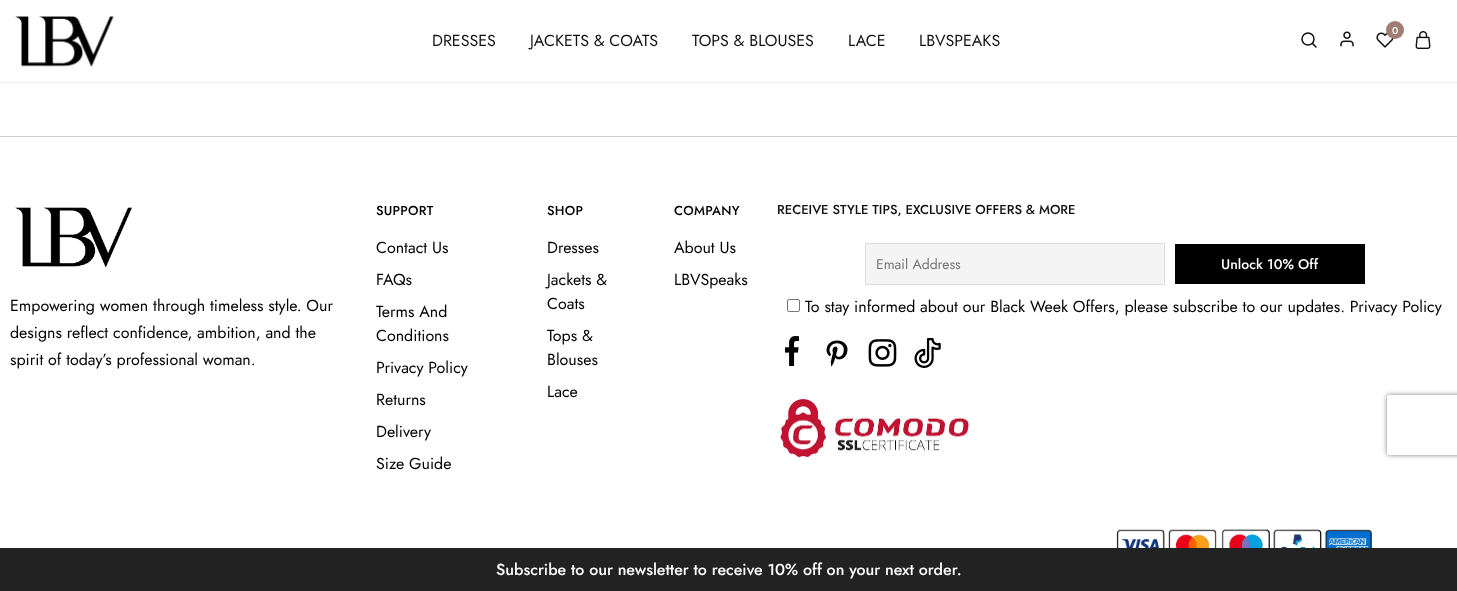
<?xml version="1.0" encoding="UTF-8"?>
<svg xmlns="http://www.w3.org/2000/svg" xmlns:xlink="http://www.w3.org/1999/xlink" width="1457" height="591">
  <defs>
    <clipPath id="clip1"><path d="M 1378 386 h 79 v 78 h -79 z m 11 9 h 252 c 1 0 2 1 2 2 v 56 c 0 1 -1 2 -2 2 h -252 c -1 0 -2 -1 -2 -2 v -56 c 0 -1 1 -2 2 -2 z" clip-rule="evenodd" /></clipPath>
  </defs>
  <rect width="100%" height="100%" fill="#ffffff" />
  <rect y="1" width="1457" height="82" fill="#f0f0f0" filter="blur(0.5px)" />
  <rect y="1" width="1457" height="81" fill="#ffffff" />
  <image x="15" y="16" width="99" height="51" xlink:href="image1.png" />
  <circle cx="1308" cy="39" r="6" fill="none" stroke="#111111" stroke-width="1.5" />
  <path d="M 1316 47 l -3.5 -3.5" fill="none" stroke="#111111" stroke-width="1.5" stroke-linecap="round" stroke-linejoin="round" />
  <image x="1340" y="31" width="14" height="16" xlink:href="image2.png" />
  <image x="1376" y="32" width="18" height="16" xlink:href="image3.png" />
  <circle cx="1395" cy="30" r="9" fill="#a07d74" />
  <image x="1415" y="31" width="16" height="18" xlink:href="image4.png" />
  <rect y="136" width="1457" height="1" fill="#cccccc" />
  <image x="15" y="207" width="117" height="61" xlink:href="image5.png" />
  <rect x="865.5" y="243.5" width="299" height="41" fill="#f4f4f4" stroke="#dddddd" />
  <rect x="1175" y="244" width="190" height="40" fill="#000000" />
  <rect x="787.5" y="299.5" width="12" height="12" rx="1.5" fill="none" stroke="#767676" />
  <image x="785" y="336" width="14" height="30" xlink:href="image6.png" />
  <image x="826" y="340" width="22" height="27" xlink:href="image7.png" />
  <image x="868" y="339" width="29" height="28" xlink:href="image8.png" />
  <image x="914" y="338" width="27" height="30" xlink:href="image9.png" />
  <image x="777" y="398" width="192" height="61" xlink:href="image10.png" />
  <image x="1116" y="529" width="256" height="19" xlink:href="image11.png" />
  <g clip-path="url(#clip1)">
    <rect x="1387" y="395" width="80" height="60" rx="2" fill="#808080" filter="blur(2.5px)" />
  </g>
  <rect y="548" width="1457" height="43" fill="#222222" />
  <text x="1392" y="34" style="font-family: Jost; font-size: 10px; font-weight: 500; fill: #ffffff">0</text>
  <text x="432" y="46" style="font-family: Jost; font-size: 16px; fill: #111111">DRESSES</text>
  <text x="530" y="46" style="font-family: Jost; font-size: 16px; fill: #111111">JACKETS &amp; COATS</text>
  <text x="692" y="46" style="font-family: Jost; font-size: 16px; fill: #111111">TOPS &amp; BLOUSES</text>
  <text x="848" y="46" style="font-family: Jost; font-size: 16px; fill: #111111">LACE</text>
  <text x="919" y="46" style="font-family: Jost; font-size: 16px; fill: #111111">LBVSPEAKS</text>
  <text x="10" y="311" style="font-family: Jost; font-size: 16px; fill: #000000">Empowering women through timeless style. Our</text>
  <text x="10" y="338" style="font-family: Jost; font-size: 16px; fill: #000000">designs reflect confidence, ambition, and the</text>
  <text x="10" y="365" style="font-family: Jost; font-size: 16px; fill: #000000">spirit of today’s professional woman.</text>
  <text x="376" y="215" style="font-family: Jost; font-size: 13px; font-weight: 500; letter-spacing: 0.25px; fill: #000000">SUPPORT</text>
  <text x="376" y="253" style="font-family: Jost; font-size: 16px; fill: #000000">Contact Us</text>
  <text x="376" y="285" style="font-family: Jost; font-size: 16px; fill: #000000">FAQs</text>
  <text x="376" y="317" style="font-family: Jost; font-size: 16px; fill: #000000">Terms And</text>
  <text x="376" y="341" style="font-family: Jost; font-size: 16px; fill: #000000">Conditions</text>
  <text x="376" y="373" style="font-family: Jost; font-size: 16px; fill: #000000">Privacy Policy</text>
  <text x="376" y="405" style="font-family: Jost; font-size: 16px; fill: #000000">Returns</text>
  <text x="376" y="437" style="font-family: Jost; font-size: 16px; fill: #000000">Delivery</text>
  <text x="376" y="469" style="font-family: Jost; font-size: 16px; fill: #000000">Size Guide</text>
  <text x="547" y="215" style="font-family: Jost; font-size: 13px; font-weight: 500; letter-spacing: 0.25px; fill: #000000">SHOP</text>
  <text x="547" y="253" style="font-family: Jost; font-size: 16px; fill: #000000">Dresses</text>
  <text x="547" y="285" style="font-family: Jost; font-size: 16px; fill: #000000">Jackets &amp;</text>
  <text x="547" y="309" style="font-family: Jost; font-size: 16px; fill: #000000">Coats</text>
  <text x="547" y="341" style="font-family: Jost; font-size: 16px; fill: #000000">Tops &amp;</text>
  <text x="547" y="365" style="font-family: Jost; font-size: 16px; fill: #000000">Blouses</text>
  <text x="547" y="397" style="font-family: Jost; font-size: 16px; fill: #000000">Lace</text>
  <text x="674" y="215" style="font-family: Jost; font-size: 13px; font-weight: 500; letter-spacing: 0.25px; fill: #000000">COMPANY</text>
  <text x="674" y="253" style="font-family: Jost; font-size: 16px; fill: #000000">About Us</text>
  <text x="674" y="285" style="font-family: Jost; font-size: 16px; fill: #000000">LBVSpeaks</text>
  <text x="777" y="214" style="font-family: Jost; font-size: 13px; font-weight: 500; fill: #111111">RECEIVE STYLE TIPS, EXCLUSIVE OFFERS &amp; MORE</text>
  <text x="876" y="269" style="font-family: Jost; font-size: 14px; fill: #757575">Email Address</text>
  <text x="1221" y="269" style="font-family: Jost; font-size: 14px; font-weight: 500; fill: #ffffff">Unlock 10% Off</text>
  <text x="805" y="312" style="font-family: Jost; font-size: 16px; fill: #000000">To stay informed about our Black Week Offers, please subscribe to our updates. Privacy Policy</text>
  <text x="496" y="575" style="font-family: Jost; font-size: 16px; font-weight: 500; fill: #ffffff">Subscribe to our newsletter to receive 10% off on your next order.</text>
</svg>
